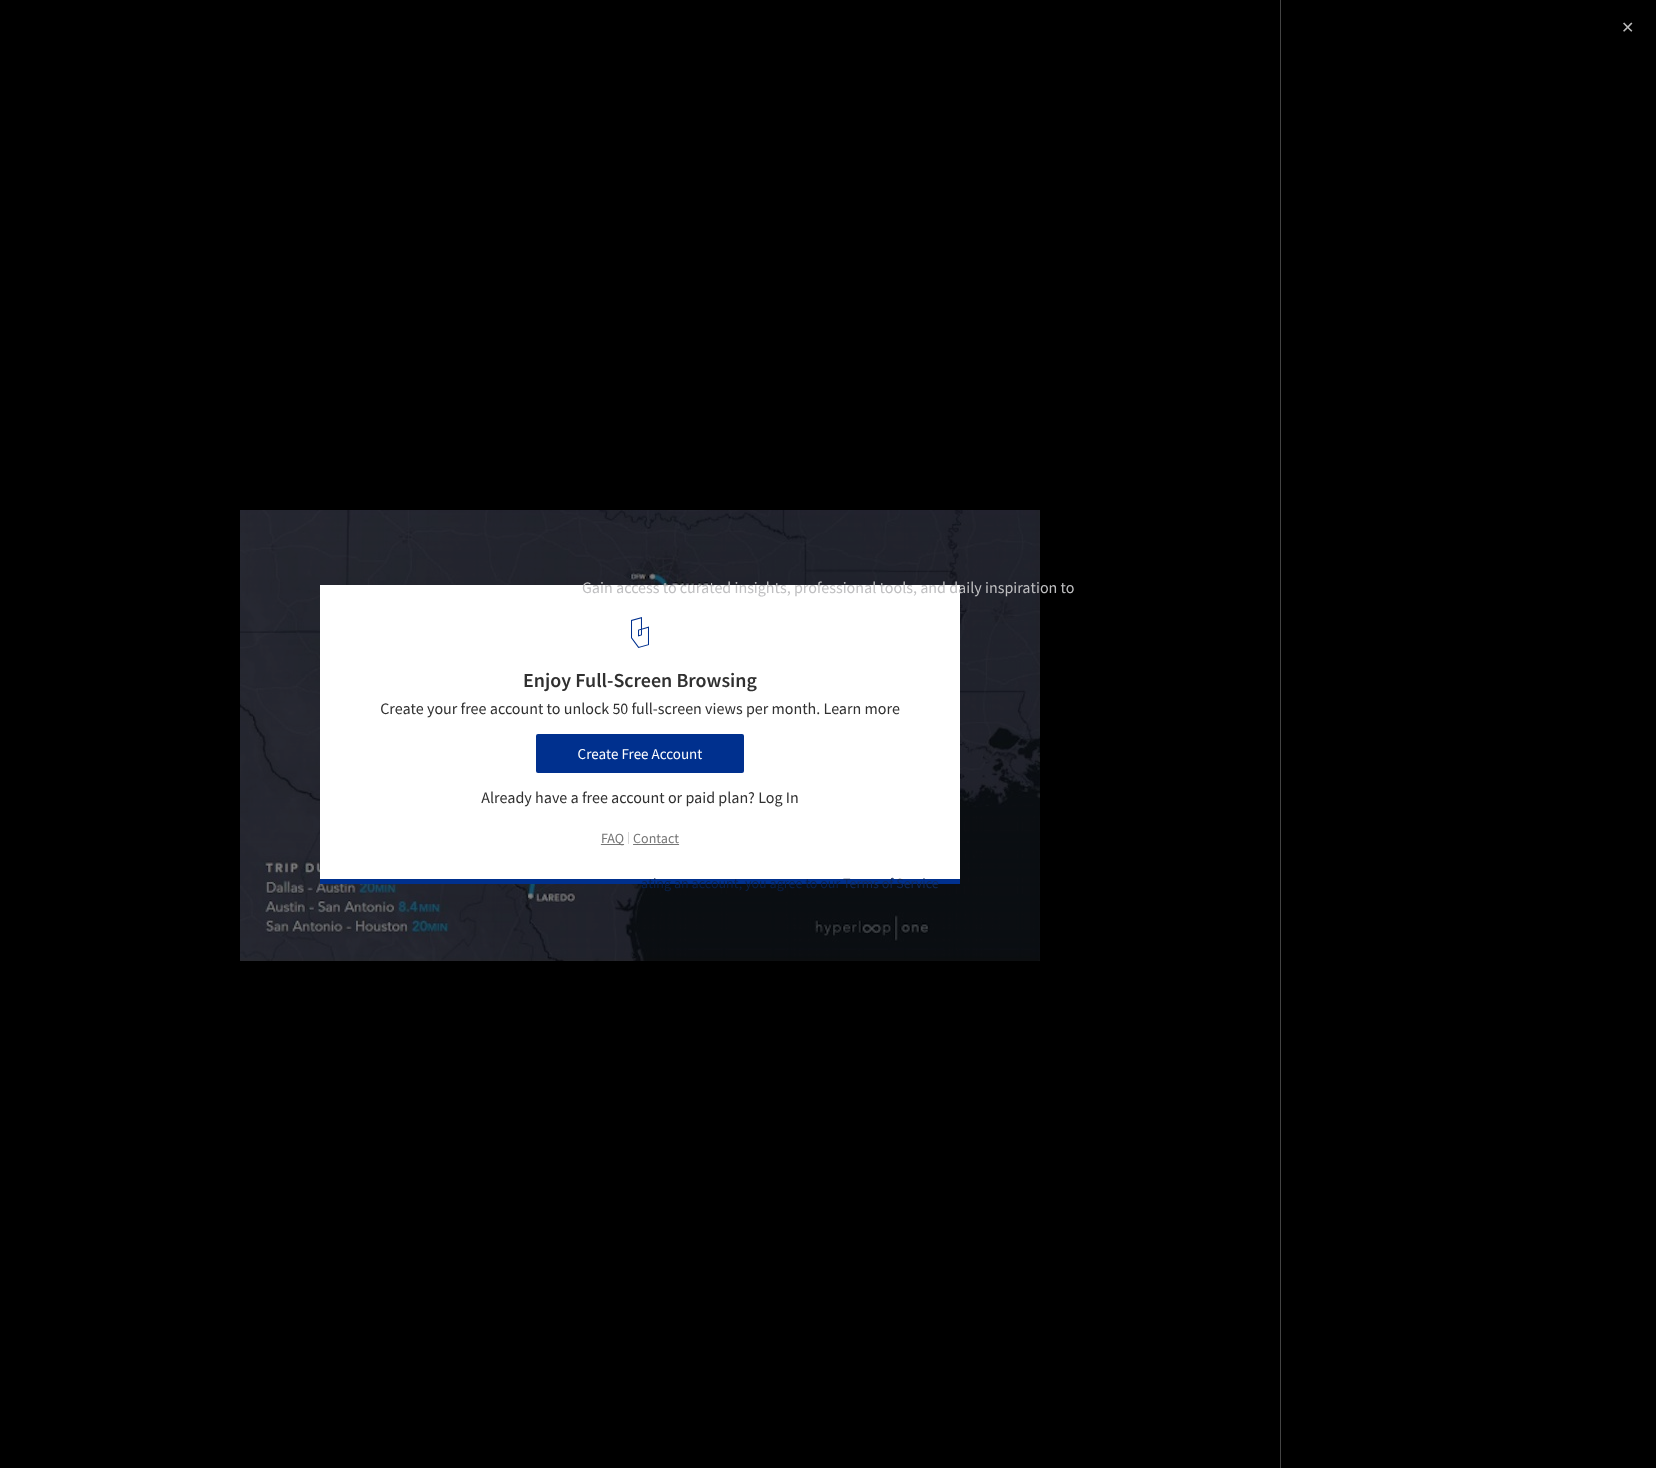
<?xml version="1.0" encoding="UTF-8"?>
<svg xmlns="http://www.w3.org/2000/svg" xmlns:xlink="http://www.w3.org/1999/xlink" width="1656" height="1468">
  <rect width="100%" height="100%" fill="#000000" />
  <rect x="1280" width="1" height="1468" fill="#444444" />
  <image x="240" y="510" width="800" height="451" xlink:href="image1.png" />
  <image x="320" y="585" width="640" height="299" xlink:href="image2.png" />
  <text x="1621" y="33" style="font-family: DejaVu Sans; font-size: 16px; fill: #bbbbbb">✕</text>
  <text x="582" y="593" style="font-family: Source Sans Pro; font-size: 16px; fill: #bfbfc1">Gain access to curated insights, professional tools, and daily inspiration to</text>
  <text x="641" y="888" style="font-family: Source Sans Pro; font-size: 14px; fill: #09204a">ating an account, you agree to our</text>
  <text x="843" y="888" style="font-family: Source Sans Pro; font-size: 14px; fill: #102856">Terms of Service</text>
</svg>
